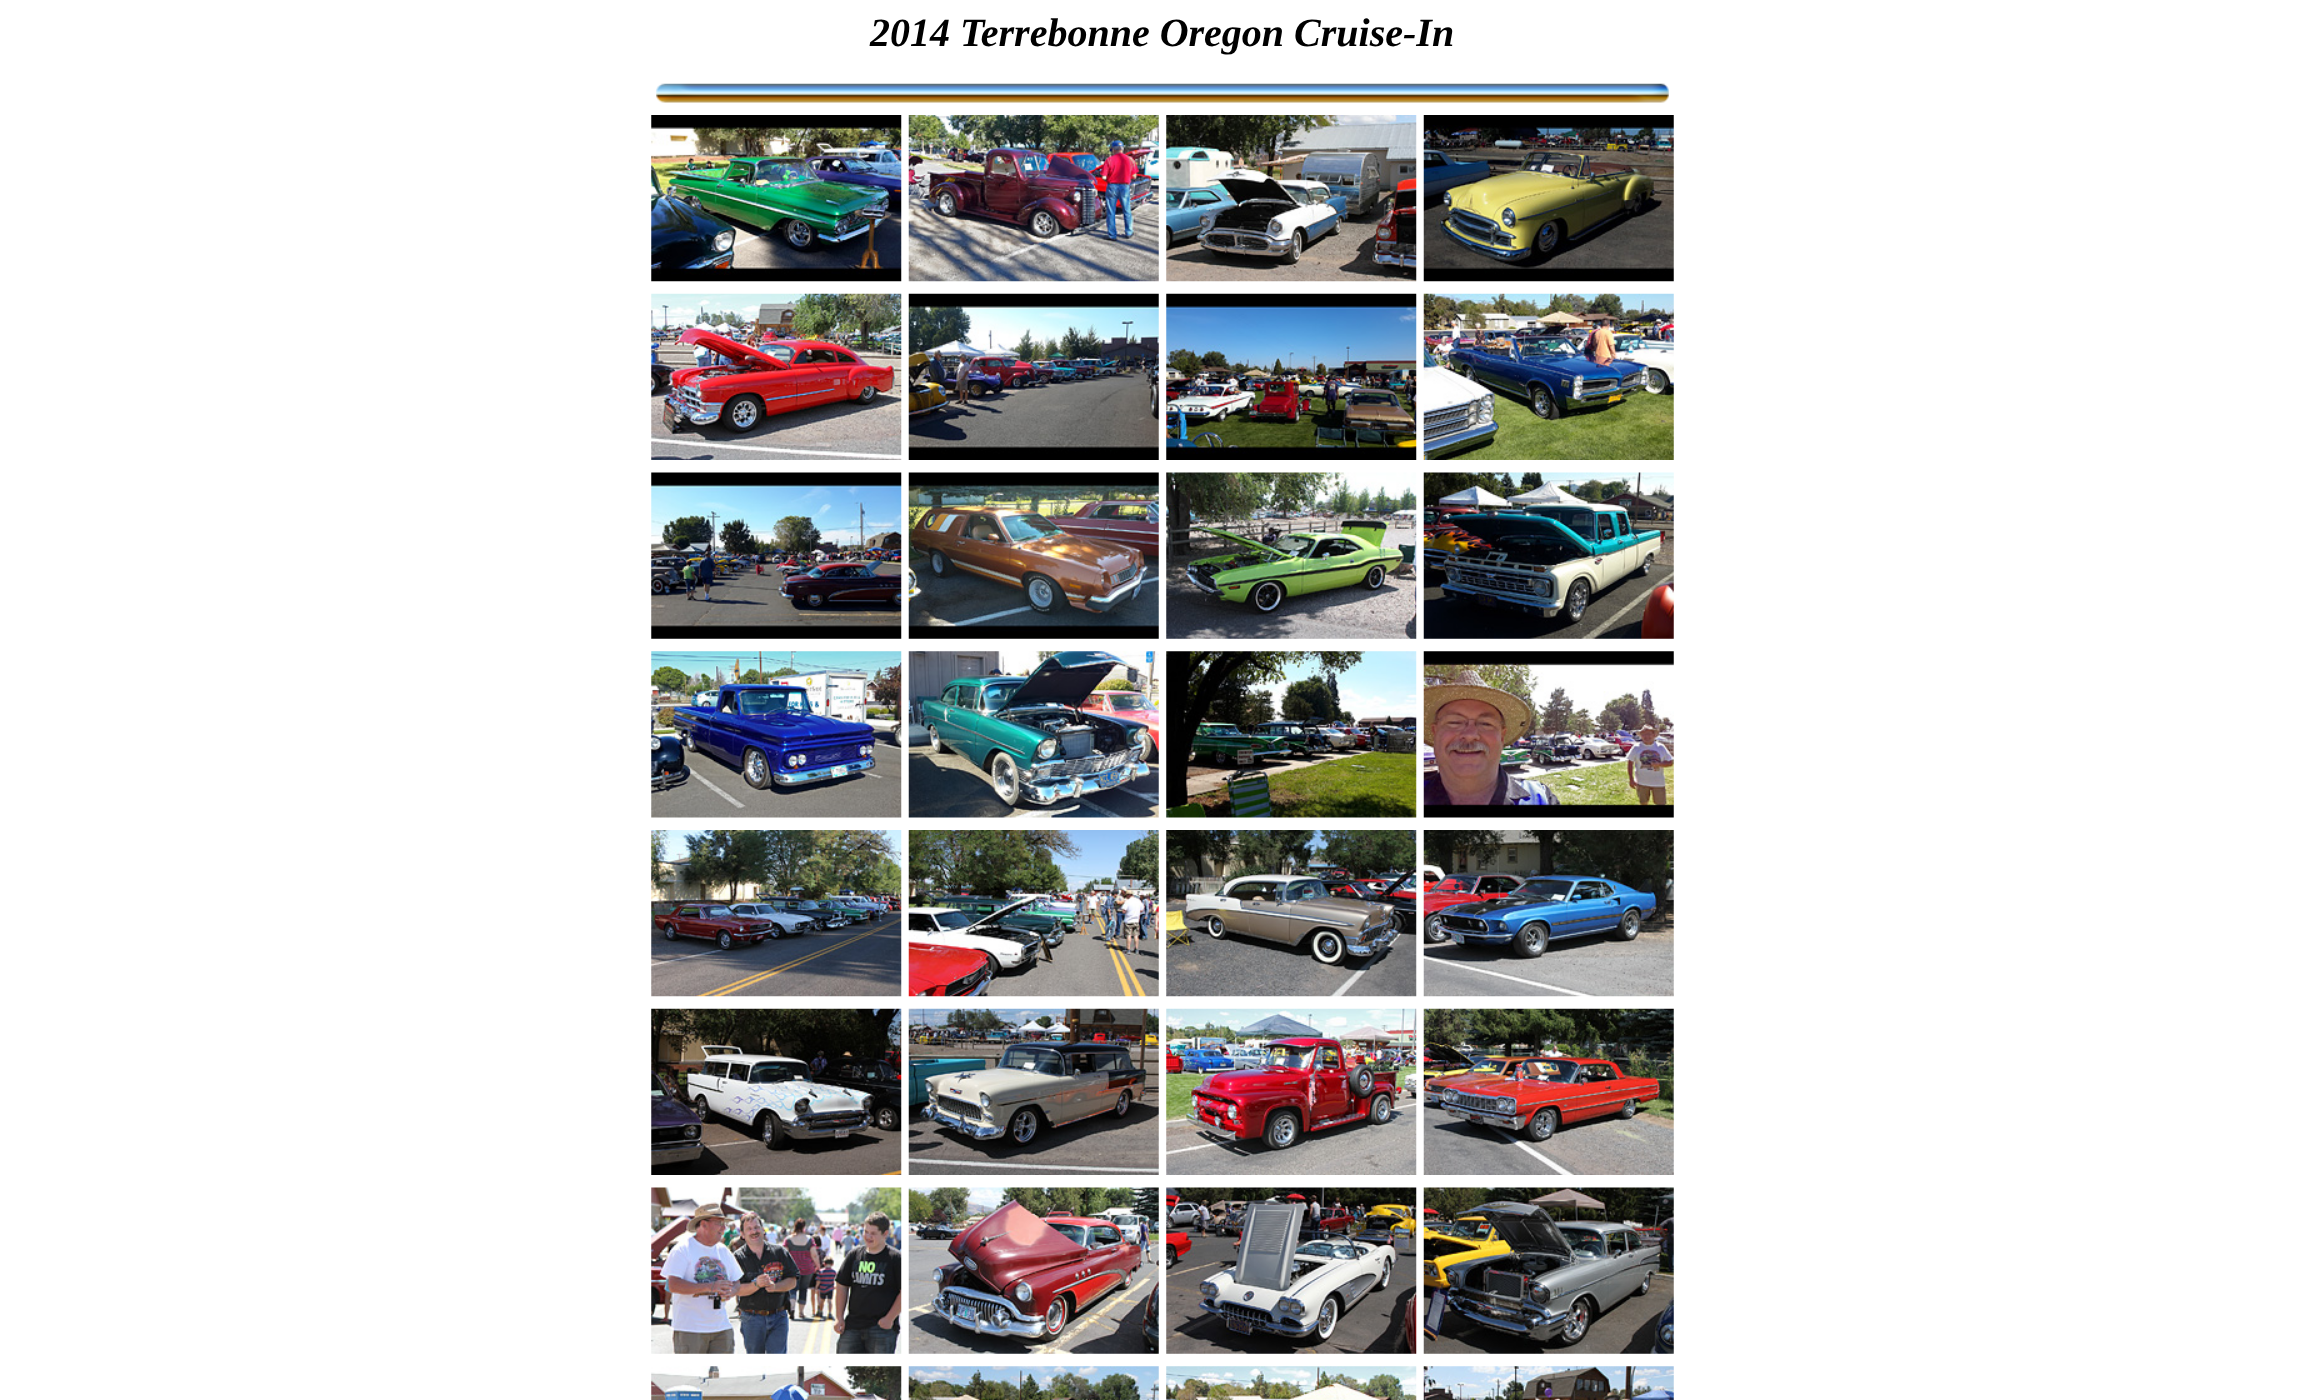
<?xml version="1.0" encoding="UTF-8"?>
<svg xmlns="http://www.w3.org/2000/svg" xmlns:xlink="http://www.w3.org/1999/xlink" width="2323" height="1400">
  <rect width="100%" height="100%" fill="#ffffff" />
  <image x="656" y="83" width="1013" height="20" xlink:href="image1.png" />
  <image x="651" y="115" width="251" height="167" xlink:href="image2.png" />
  <image x="908" y="115" width="251" height="167" xlink:href="image3.png" />
  <image x="1166" y="115" width="251" height="167" xlink:href="image4.png" />
  <image x="1423" y="115" width="251" height="167" xlink:href="image5.png" />
  <image x="651" y="293" width="251" height="167" xlink:href="image6.png" />
  <image x="908" y="293" width="251" height="167" xlink:href="image7.png" />
  <image x="1166" y="293" width="251" height="167" xlink:href="image8.png" />
  <image x="1423" y="293" width="251" height="167" xlink:href="image9.png" />
  <image x="651" y="472" width="251" height="167" xlink:href="image10.png" />
  <image x="908" y="472" width="251" height="167" xlink:href="image11.png" />
  <image x="1166" y="472" width="251" height="167" xlink:href="image12.png" />
  <image x="1423" y="472" width="251" height="167" xlink:href="image13.png" />
  <image x="651" y="651" width="251" height="167" xlink:href="image14.png" />
  <image x="908" y="651" width="251" height="167" xlink:href="image15.png" />
  <image x="1166" y="651" width="251" height="167" xlink:href="image16.png" />
  <image x="1423" y="651" width="251" height="167" xlink:href="image17.png" />
  <image x="651" y="830" width="251" height="167" xlink:href="image18.png" />
  <image x="908" y="830" width="251" height="167" xlink:href="image19.png" />
  <image x="1166" y="830" width="251" height="167" xlink:href="image20.png" />
  <image x="1423" y="830" width="251" height="167" xlink:href="image21.png" />
  <image x="651" y="1008" width="251" height="167" xlink:href="image22.png" />
  <image x="908" y="1008" width="251" height="167" xlink:href="image23.png" />
  <image x="1166" y="1008" width="251" height="167" xlink:href="image24.png" />
  <image x="1423" y="1008" width="251" height="167" xlink:href="image25.png" />
  <image x="651" y="1187" width="251" height="167" xlink:href="image26.png" />
  <image x="908" y="1187" width="251" height="167" xlink:href="image27.png" />
  <image x="1166" y="1187" width="251" height="167" xlink:href="image28.png" />
  <image x="1423" y="1187" width="251" height="167" xlink:href="image29.png" />
  <image x="651" y="1366" width="251" height="34" xlink:href="image30.png" />
  <image x="908" y="1366" width="251" height="34" xlink:href="image31.png" />
  <image x="1166" y="1366" width="251" height="34" xlink:href="image32.png" />
  <image x="1423" y="1366" width="251" height="34" xlink:href="image33.png" />
  <text x="870" y="46" style="font-family: Liberation Serif; font-size: 40px; font-weight: bold; font-style: italic; fill: #000000">2014 Terrebonne Oregon Cruise-In</text>
</svg>
